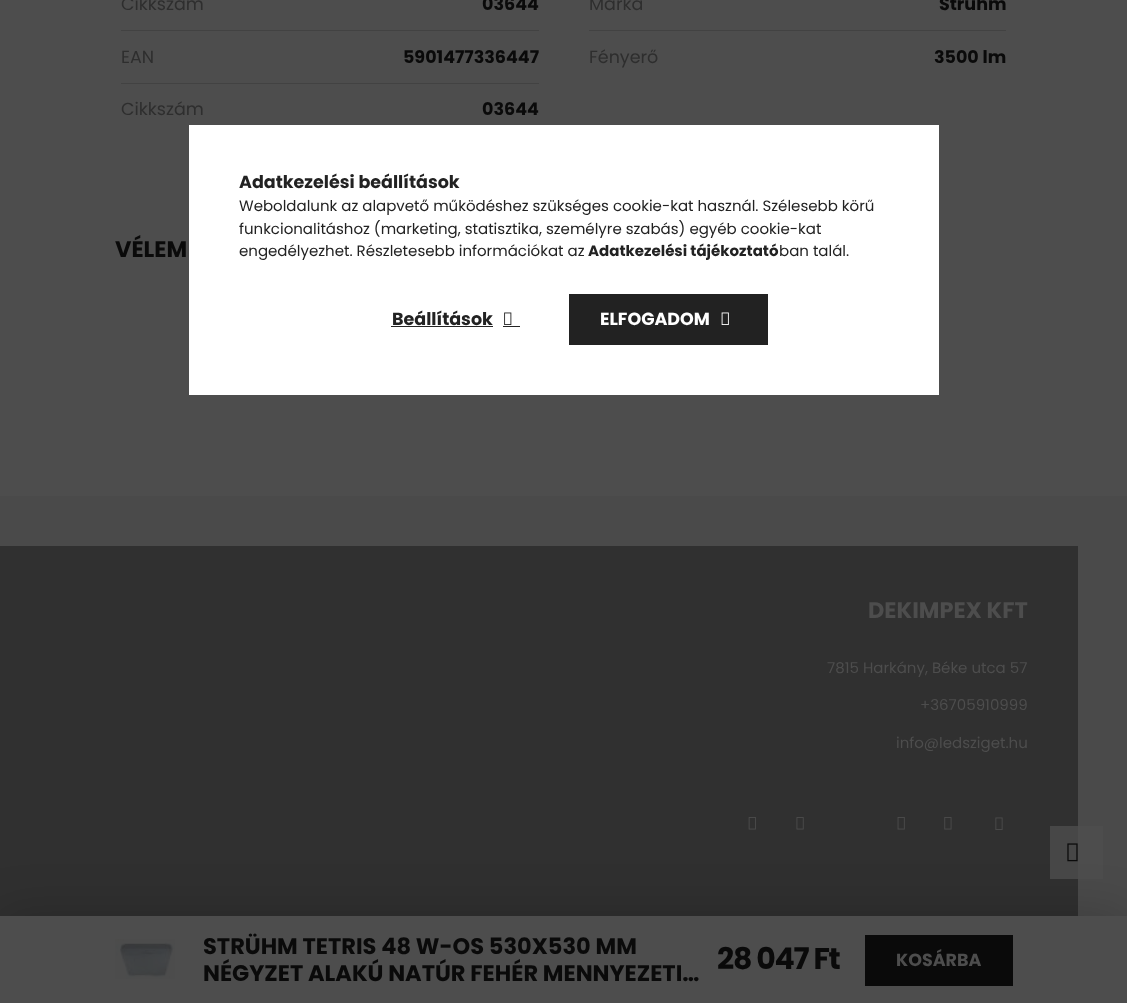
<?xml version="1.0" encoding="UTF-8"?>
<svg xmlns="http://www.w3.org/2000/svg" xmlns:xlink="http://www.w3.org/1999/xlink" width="1127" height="1003">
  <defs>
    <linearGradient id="g1" gradientUnits="userSpaceOnUse" x1="570" y1="961" x2="1013" y2="961"><stop offset="0" stop-color="#0b0b0b" /><stop offset="0.33" stop-color="#0b0b0b" /><stop offset="0.67" stop-color="#0a0a0a" /><stop offset="1" stop-color="#0a0a0a" /></linearGradient>
    <linearGradient id="g2" gradientUnits="userSpaceOnUse" x1="171" y1="319" x2="768" y2="319"><stop offset="0" stop-color="#242424" /><stop offset="0.33" stop-color="#242424" /><stop offset="0.67" stop-color="#222222" /><stop offset="1" stop-color="#222222" /></linearGradient>
  </defs>
  <rect width="100%" height="100%" fill="#4d4d4d" />
  <rect x="121" y="30" width="418" height="1" fill="#424242" />
  <rect x="589" y="30" width="417" height="1" fill="#424242" />
  <rect x="121" y="83" width="418" height="1" fill="#424242" />
  <rect y="496" width="1127" height="420" fill="#4a4a4a" />
  <rect y="546" width="1078" height="370" fill="#303030" />
  <rect y="916" width="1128" height="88" fill="#000000" fill-opacity="0.2" filter="blur(25px)" />
  <rect y="916" width="1127" height="87" fill="#4d4d4d" />
  <image x="115" y="939" width="60" height="40" xlink:href="image1.png" />
  <rect x="865" y="935" width="148" height="51" fill="url(#g1)" />
  <image x="748" y="817" width="8" height="13" xlink:href="image2.png" />
  <image x="796" y="817" width="8" height="13" xlink:href="image3.png" />
  <image x="897" y="817" width="8" height="13" xlink:href="image4.png" />
  <image x="944" y="817" width="8" height="13" xlink:href="image5.png" />
  <image x="995" y="817" width="8" height="13" xlink:href="image6.png" />
  <rect x="189" y="125" width="750" height="270" fill="#ffffff" />
  <rect x="391" y="326" width="102" height="1" fill="#242424" />
  <image x="504" y="312" width="8" height="13" xlink:href="image7.png" />
  <rect x="503" y="326" width="17" height="1" fill="#242424" />
  <rect x="569" y="294" width="199" height="51" fill="url(#g2)" />
  <image x="721" y="312" width="8" height="13" xlink:href="image8.png" />
  <rect x="1050" y="826" width="53" height="53" fill="#4d4d4d" fill-opacity="0.8" />
  <image x="1067" y="843" width="11" height="19" xlink:href="image9.png" />
  <text x="121" y="10" style="font-family: Poppins; font-size: 17.5px; fill: #2e2e2e">Cikkszám</text>
  <text x="482" y="10" style="font-family: Poppins; font-size: 17.5px; font-weight: bold; fill: #0a0a0a">03644</text>
  <text x="589" y="10" style="font-family: Poppins; font-size: 17.5px; fill: #2e2e2e">Márka</text>
  <text x="939" y="10" style="font-family: Poppins; font-size: 17.5px; font-weight: bold; fill: #0a0a0a">Strühm</text>
  <text x="121" y="63" style="font-family: Poppins; font-size: 17.5px; fill: #2e2e2e">EAN</text>
  <text x="403" y="63" style="font-family: Poppins; font-size: 17.5px; font-weight: bold; fill: #0a0a0a">5901477336447</text>
  <text x="589" y="63" style="font-family: Poppins; font-size: 17.5px; fill: #2e2e2e">Fényerő</text>
  <text x="934" y="63" style="font-family: Poppins; font-size: 17.5px; font-weight: bold; fill: #0a0a0a">3500 lm</text>
  <text x="121" y="115" style="font-family: Poppins; font-size: 17.5px; fill: #2e2e2e">Cikkszám</text>
  <text x="482" y="115" style="font-family: Poppins; font-size: 17.5px; font-weight: bold; fill: #0a0a0a">03644</text>
  <text x="115" y="257" style="font-family: Poppins; font-size: 22.5px; font-weight: bold; fill: #0a0a0a">VÉLEM</text>
  <text x="203" y="954" style="font-family: Poppins; font-size: 22.5px; font-weight: bold; fill: #0a0a0a">STRÜHM TETRIS 48 W-OS 530X530 MM</text>
  <text x="203" y="981" style="font-family: Poppins; font-size: 22.5px; font-weight: bold; fill: #0a0a0a">NÉGYZET ALAKÚ NATÚR FEHÉR MENNYEZETI…</text>
  <text x="717" y="969" style="font-family: Poppins; font-size: 30px; font-weight: bold; letter-spacing: -1.25px; fill: #0a0a0a">28 047 Ft</text>
  <text x="896" y="966" style="font-family: Poppins; font-size: 17.5px; font-weight: bold; fill: #4d4d4d">KOSÁRBA</text>
  <text x="868" y="618" style="font-family: Poppins; font-size: 22.5px; font-weight: bold; fill: #4d4d4d">DEKIMPEX KFT</text>
  <text x="827" y="673" style="font-family: Poppins; font-size: 15px; fill: #4d4d4d">7815 Harkány, Béke utca 57</text>
  <text x="920" y="710" style="font-family: Poppins; font-size: 15px; fill: #4d4d4d">+36705910999</text>
  <text x="896" y="748" style="font-family: Poppins; font-size: 15px; fill: #4d4d4d">info@ledsziget.hu</text>
  <text x="239" y="188" style="font-family: Poppins; font-size: 17.5px; font-weight: bold; fill: #222222">Adatkezelési beállítások</text>
  <text x="239" y="211" style="font-family: Poppins; font-size: 15px; fill: #222222">Weboldalunk az alapvető működéshez szükséges cookie-kat használ. Szélesebb körű</text>
  <text x="239" y="234" style="font-family: Poppins; font-size: 15px; fill: #222222">funkcionalitáshoz (marketing, statisztika, személyre szabás) egyéb cookie-kat</text>
  <text x="239" y="256" style="font-family: Poppins; font-size: 15px; fill: #222222">engedélyezhet. Részletesebb információkat az</text>
  <text x="588" y="256" style="font-family: Poppins; font-size: 15px; font-weight: bold; fill: #222222">Adatkezelési tájékoztató</text>
  <text x="779" y="256" style="font-family: Poppins; font-size: 15px; fill: #222222">ban talál.</text>
  <text x="392" y="325" style="font-family: Poppins; font-size: 17.5px; font-weight: bold; fill: #222222">Beállítások</text>
  <text x="600" y="325" style="font-family: Poppins; font-size: 17.5px; font-weight: bold; fill: #ffffff">ELFOGADOM</text>
</svg>
